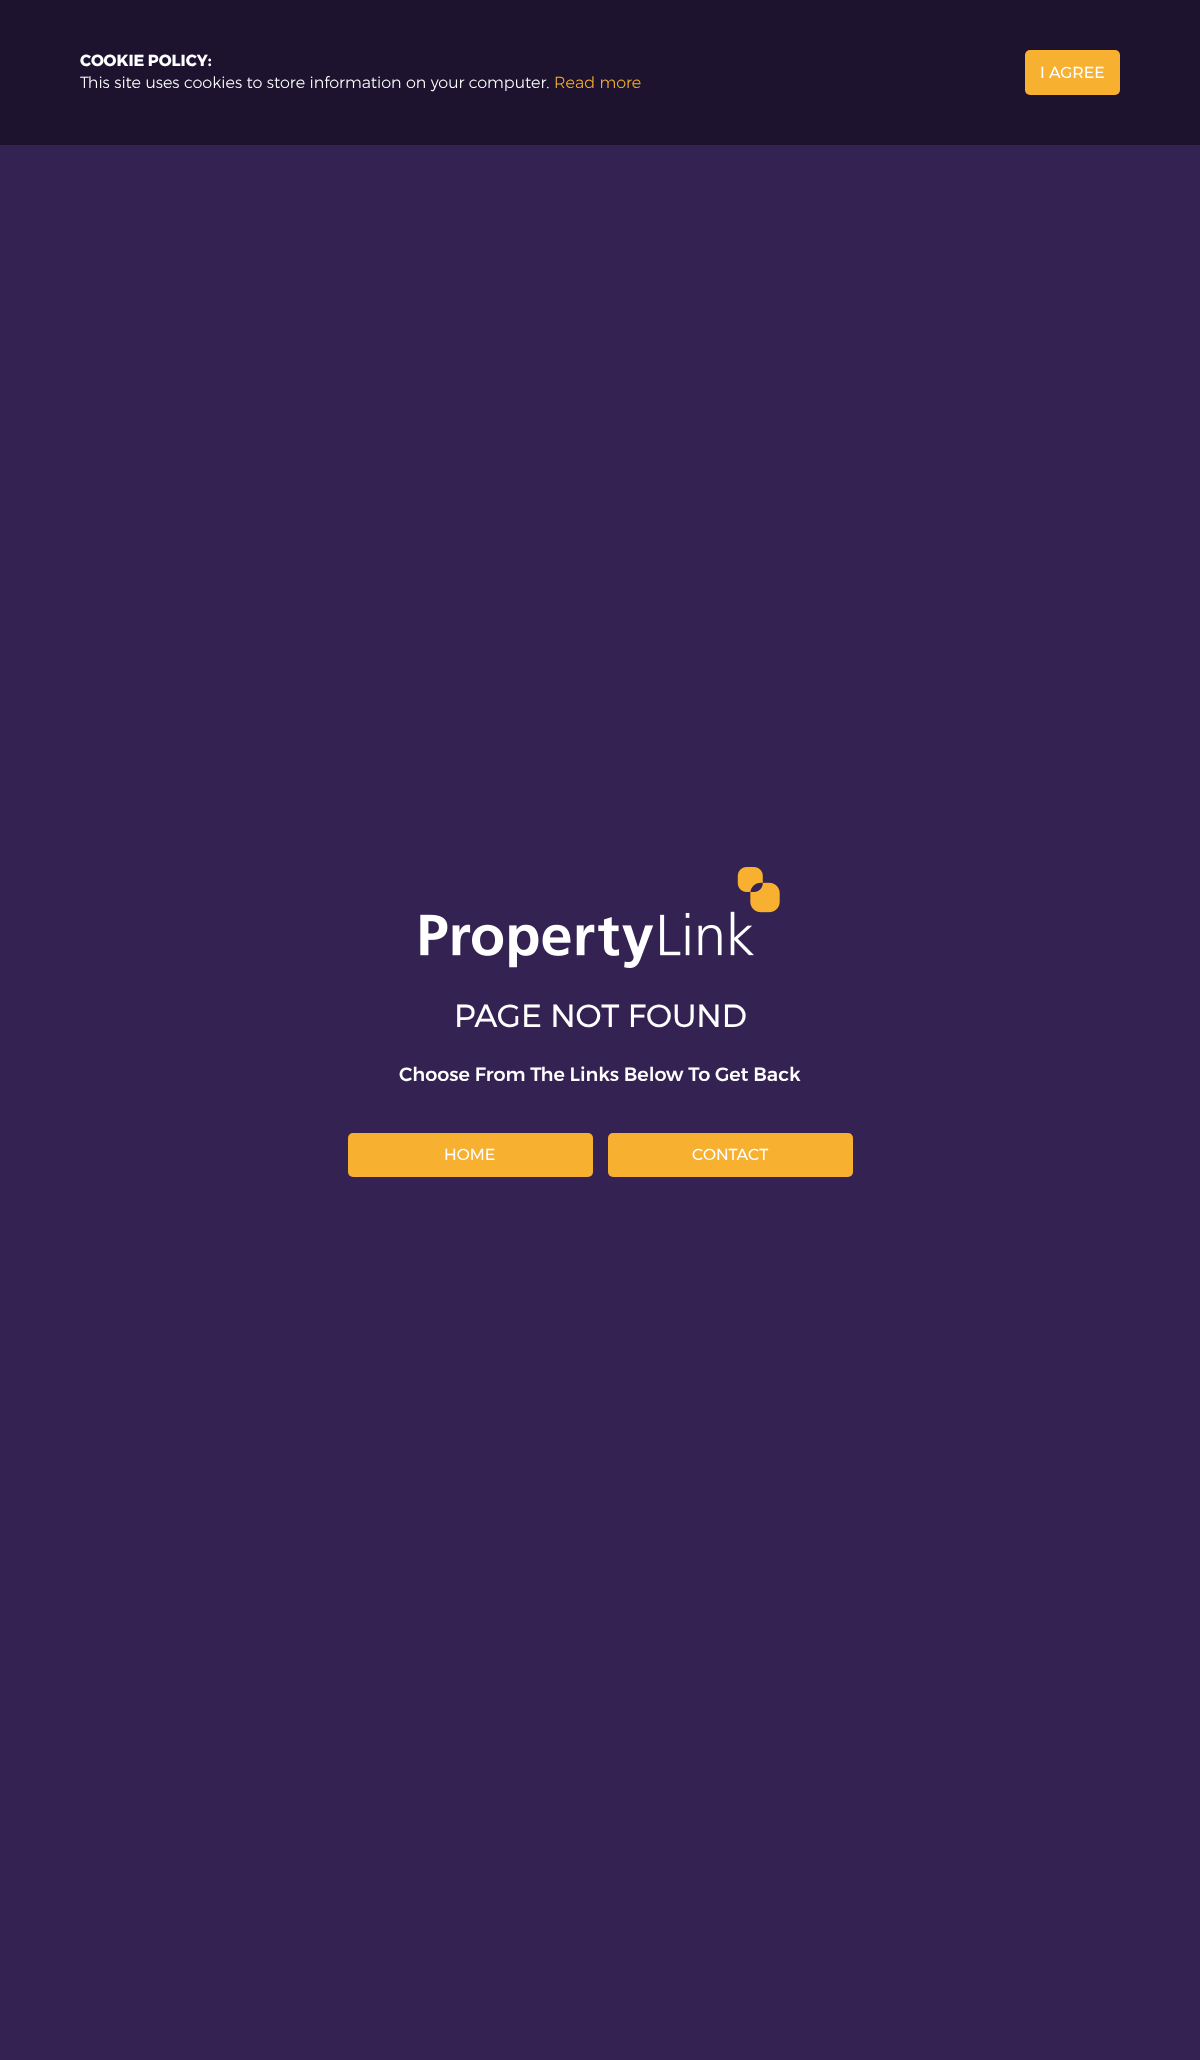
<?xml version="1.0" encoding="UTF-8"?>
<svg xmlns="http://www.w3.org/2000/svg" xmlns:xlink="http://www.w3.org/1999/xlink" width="1200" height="2060">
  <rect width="100%" height="100%" fill="#332252" />
  <rect width="1200" height="145" fill="#1d132e" />
  <rect x="1025" y="50" width="95" height="45" rx="5" fill="#f7b030" />
  <image x="420" y="867" width="360" height="101" xlink:href="image1.png" />
  <rect x="348" y="1133" width="245" height="44" rx="5" fill="#f7b030" />
  <rect x="608" y="1133" width="245" height="44" rx="5" fill="#f7b030" />
  <text x="80" y="66" style="font-family: Montserrat; font-size: 16px; font-weight: bold; fill: #ffffff">COOKIE POLICY:</text>
  <text x="80" y="88" style="font-family: Montserrat; font-size: 16px; font-weight: 300; fill: #ffffff">This site uses cookies to store information on your computer.</text>
  <text x="554" y="88" style="font-family: Montserrat; font-size: 16px; font-weight: 300; fill: #f7b030">Read more</text>
  <text x="1040" y="78" style="font-family: Montserrat; font-size: 16px; fill: #ffffff">I AGREE</text>
  <text x="454" y="1027" style="font-family: Montserrat; font-size: 32px; fill: #ffffff">PAGE NOT FOUND</text>
  <text x="399" y="1081" style="font-family: Montserrat; font-size: 19.2px; font-weight: 500; fill: #ffffff">Choose From The Links Below To Get Back</text>
  <text x="444" y="1160" style="font-family: Montserrat; font-size: 16px; fill: #ffffff">HOME</text>
  <text x="692" y="1160" style="font-family: Montserrat; font-size: 16px; fill: #ffffff">CONTACT</text>
</svg>
